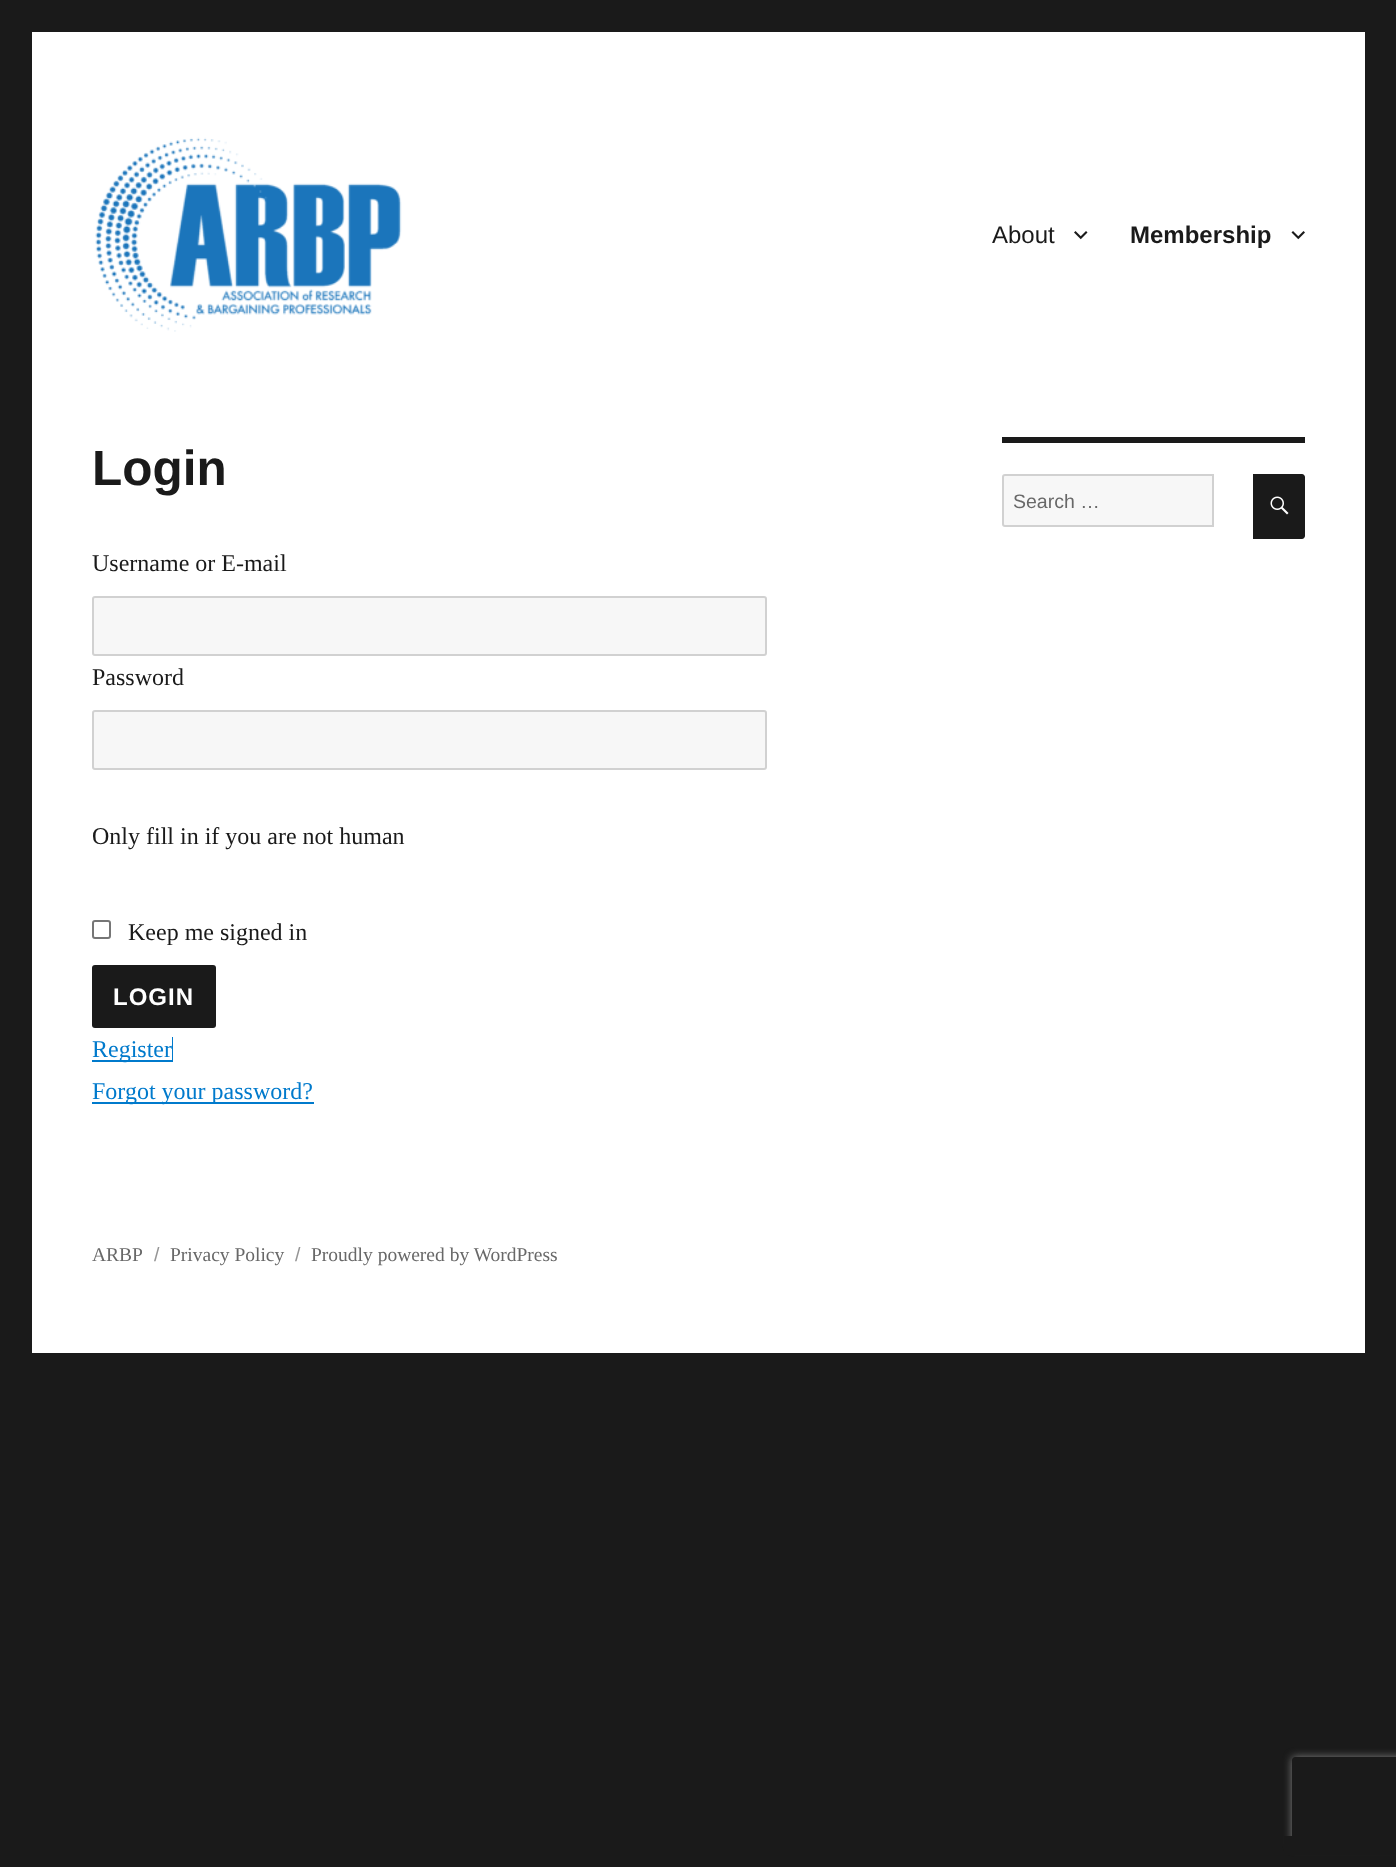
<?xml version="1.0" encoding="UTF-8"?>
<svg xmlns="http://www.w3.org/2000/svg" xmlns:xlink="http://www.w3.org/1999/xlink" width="1396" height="1867">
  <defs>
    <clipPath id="clip1"><path d="M 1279 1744 h 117 v 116 h -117 z m 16 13 h 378 c 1.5 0 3 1.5 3 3 v 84 c 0 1.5 -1.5 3 -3 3 h -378 c -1.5 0 -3 -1.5 -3 -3 v -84 c 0 -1.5 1.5 -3 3 -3 z" clip-rule="evenodd" /></clipPath>
  </defs>
  <rect width="100%" height="100%" fill="#1a1a1a" />
  <rect x="32" y="32" width="1333" height="1321" fill="#ffffff" />
  <image x="95" y="137" width="307" height="195" xlink:href="image1.png" />
  <image x="1074" y="231" width="14" height="9" xlink:href="image2.png" />
  <image x="1291" y="231" width="14" height="9" xlink:href="image3.png" />
  <rect x="93" y="597" width="673" height="58" rx="2" fill="#f7f7f7" stroke="#d1d1d1" stroke-width="2" />
  <rect x="93" y="711" width="673" height="58" rx="2" fill="#f7f7f7" stroke="#d1d1d1" stroke-width="2" />
  <rect x="93" y="921" width="17" height="17" rx="2" fill="none" stroke="#767676" stroke-width="2" />
  <rect x="92" y="965" width="124" height="63" rx="3" fill="#1a1a1a" />
  <path d="M 92 1060 v 2 h 81 v -25 h -1 v 23 z" fill="#007acc" />
  <path d="M 92 1102 v 2 h 222 v -25 v 23 z" fill="#007acc" />
  <rect x="1002" y="437" width="303" height="6" fill="#1a1a1a" />
  <path d="M 1005 475 h 208 v 51 h -208 c -1 0 -2 -1 -2 -2 v -47 c 0 -1 1 -2 2 -2 z" fill="#f7f7f7" stroke="#d1d1d1" stroke-width="2" />
  <path d="M 1253 474 h 49 c 1.5 0 3 1.5 3 3 v 59 c 0 1.5 -1.5 3 -3 3 h -49 z" fill="#1a1a1a" />
  <image x="1270" y="496" width="19" height="19" xlink:href="image4.png" />
  <g clip-path="url(#clip1)">
    <rect x="1292" y="1757" width="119" height="90" rx="3" fill="#808080" filter="blur(4px)" />
  </g>
  <rect x="1284" y="1836" width="112" height="19" fill="#1a1a1a" />
  <text x="992" y="243" style="font-family: Liberation Sans; font-size: 24px; fill: #1a1a1a">About</text>
  <text x="1130" y="243" style="font-family: Liberation Sans; font-size: 24px; font-weight: bold; fill: #1a1a1a">Membership</text>
  <text x="92" y="485" style="font-family: Liberation Sans; font-size: 49.5px; font-weight: bold; fill: #1a1a1a">Login</text>
  <text x="92" y="571" style="font-family: Liberation Serif; font-size: 24px; fill: #1a1a1a">Username or E-mail</text>
  <text x="92" y="685" style="font-family: Liberation Serif; font-size: 24px; fill: #1a1a1a">Password</text>
  <text x="92" y="844" style="font-family: Liberation Serif; font-size: 24px; fill: #1a1a1a">Only fill in if you are not human</text>
  <text x="128" y="940" style="font-family: Liberation Serif; font-size: 24px; fill: #1a1a1a">Keep me signed in</text>
  <text x="113" y="1005" style="font-family: Liberation Sans; font-size: 24px; font-weight: bold; letter-spacing: 1px; fill: #ffffff">LOGIN</text>
  <text x="92" y="1057" style="font-family: Liberation Serif; font-size: 24px; fill: #007acc">Register</text>
  <text x="92" y="1099" style="font-family: Liberation Serif; font-size: 24px; fill: #007acc">Forgot your password?</text>
  <text x="1013" y="508" style="font-family: Liberation Sans; font-size: 19.5px; fill: #686868">Search …</text>
  <text x="92" y="1261" style="font-family: Liberation Serif; font-size: 19.5px; fill: #686868">ARBP</text>
  <text x="154" y="1261" style="font-family: Liberation Sans; font-size: 19.5px; fill: #959595">/</text>
  <text x="170" y="1261" style="font-family: Liberation Serif; font-size: 19.5px; fill: #686868">Privacy Policy</text>
  <text x="295" y="1261" style="font-family: Liberation Sans; font-size: 19.5px; fill: #959595">/</text>
  <text x="311" y="1261" style="font-family: Liberation Serif; font-size: 19.5px; fill: #686868">Proudly powered by WordPress</text>
</svg>
